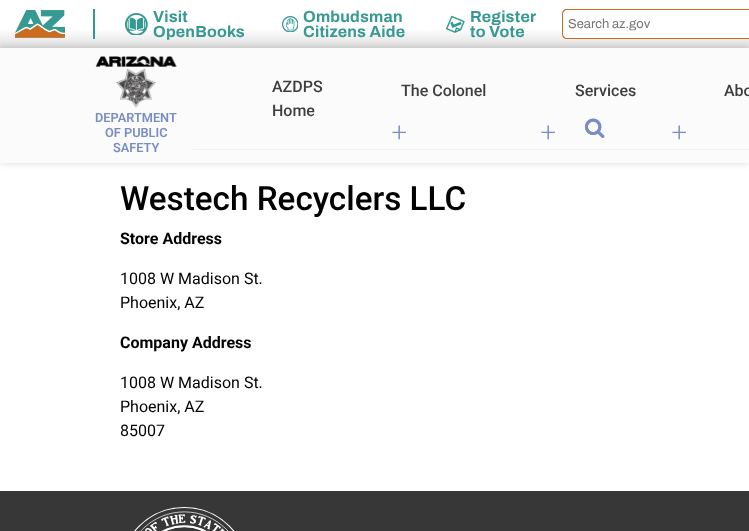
<?xml version="1.0" encoding="UTF-8"?>
<svg xmlns="http://www.w3.org/2000/svg" xmlns:xlink="http://www.w3.org/1999/xlink" width="749" height="531">
  <defs>
    <linearGradient id="g1" gradientUnits="userSpaceOnUse" x1="375" y1="0" x2="375" y2="48"><stop offset="0" stop-color="#ffffff" /><stop offset="0.6" stop-color="#ffffff" /><stop offset="1" stop-color="#dedede" /></linearGradient>
  </defs>
  <rect width="100%" height="100%" fill="#ffffff" />
  <rect y="30" width="749" height="18" fill="url(#g1)" />
  <image x="15" y="10" width="50" height="28" xlink:href="image1.png" />
  <rect x="93" y="9" width="2" height="30" fill="#349992" />
  <image x="125" y="13" width="23" height="22" xlink:href="image2.png" />
  <image x="282" y="16" width="16" height="16" xlink:href="image3.png" />
  <image x="446" y="15" width="19" height="18" xlink:href="image4.png" />
  <path d="M 567 9 h 182 v 30 h -182 c -3 0 -5 -2 -5 -5 v -20 c 0 -3 2 -5 5 -5 z" fill="#ffffff" />
  <path d="M 567 9 h 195 v 30 h -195 c -3 0 -5 -2 -5 -5 v -20 c 0 -3 2 -5 5 -5 z m 0 1 h 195 v 28 h -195 c -2 0 -4 -2 -4 -4 v -20 c 0 -2 2 -4 4 -4 z" fill="#cc6c20" fill-rule="evenodd" />
  <rect y="48" width="749" height="115" fill="#000000" fill-opacity="0.15" filter="blur(3.5px)" />
  <rect y="48" width="749" height="115" fill="#fbfbfb" />
  <image x="95" y="56" width="82" height="52" xlink:href="image5.png" />
  <rect x="193" y="149" width="556" height="1" fill="#f1f1f1" />
  <image x="585" y="118" width="20" height="20" xlink:href="image6.png" />
  <image x="585" y="118" width="20" height="20" xlink:href="image7.png" />
  <rect y="491" width="749" height="40" fill="#373737" />
  <image x="134" y="507" width="101" height="24" xlink:href="image8.png" />
  <text x="153" y="22" style="font-family: Archivo; font-size: 16px; font-weight: bold; letter-spacing: 0.2px; fill: #369992">Visit</text>
  <text x="153" y="37" style="font-family: Archivo; font-size: 16px; font-weight: bold; letter-spacing: 0.2px; fill: #369992">OpenBooks</text>
  <text x="303" y="22" style="font-family: Archivo; font-size: 16px; font-weight: bold; letter-spacing: 0.2px; fill: #369992">Ombudsman</text>
  <text x="303" y="37" style="font-family: Archivo; font-size: 16px; font-weight: bold; letter-spacing: 0.2px; fill: #369992">Citizens Aide</text>
  <text x="470" y="22" style="font-family: Archivo; font-size: 16px; font-weight: bold; letter-spacing: 0.2px; fill: #369992">Register</text>
  <text x="470" y="37" style="font-family: Archivo; font-size: 16px; font-weight: bold; letter-spacing: 0.2px; fill: #369992">to Vote</text>
  <text x="568" y="28" style="font-family: Archivo; font-size: 13px; fill: #757575">Search az.gov</text>
  <text x="95" y="122" style="font-family: Roboto; font-size: 12.75px; font-weight: 600; fill: #798dc5">DEPARTMENT</text>
  <text x="105" y="137" style="font-family: Roboto; font-size: 12.75px; font-weight: 600; fill: #798dc5">OF PUBLIC</text>
  <text x="113" y="152" style="font-family: Roboto; font-size: 12.75px; font-weight: 600; fill: #798dc5">SAFETY</text>
  <text x="272" y="92" style="font-family: Roboto; font-size: 16px; font-weight: 500; fill: #3e3e3e">AZDPS</text>
  <text x="272" y="116" style="font-family: Roboto; font-size: 16px; font-weight: 500; fill: #3e3e3e">Home</text>
  <text x="401" y="96" style="font-family: Roboto; font-size: 16px; font-weight: 500; fill: #3e3e3e">The Colonel</text>
  <text x="391" y="142" style="font-family: Liberation Serif; font-size: 29px; fill: #798dc5">+</text>
  <text x="575" y="96" style="font-family: Roboto; font-size: 16px; font-weight: 500; fill: #3e3e3e">Services</text>
  <text x="540" y="142" style="font-family: Liberation Serif; font-size: 29px; fill: #798dc5">+</text>
  <text x="724" y="96" style="font-family: Roboto; font-size: 16px; font-weight: 500; fill: #3e3e3e">Abo</text>
  <text x="671" y="142" style="font-family: Liberation Serif; font-size: 29px; fill: #798dc5">+</text>
  <text x="120" y="210" style="font-family: Roboto; font-size: 33.25px; font-weight: 500; fill: #000000">Westech Recyclers LLC</text>
  <text x="120" y="244" style="font-family: Roboto; font-size: 16px; font-weight: bold; fill: #000000">Store Address</text>
  <text x="120" y="284" style="font-family: Roboto; font-size: 16px; fill: #000000">1008 W Madison St.</text>
  <text x="120" y="308" style="font-family: Roboto; font-size: 16px; fill: #000000">Phoenix, AZ</text>
  <text x="120" y="348" style="font-family: Roboto; font-size: 16px; font-weight: bold; fill: #000000">Company Address</text>
  <text x="120" y="388" style="font-family: Roboto; font-size: 16px; fill: #000000">1008 W Madison St.</text>
  <text x="120" y="412" style="font-family: Roboto; font-size: 16px; fill: #000000">Phoenix, AZ</text>
  <text x="120" y="436" style="font-family: Roboto; font-size: 16px; fill: #000000">85007</text>
</svg>
